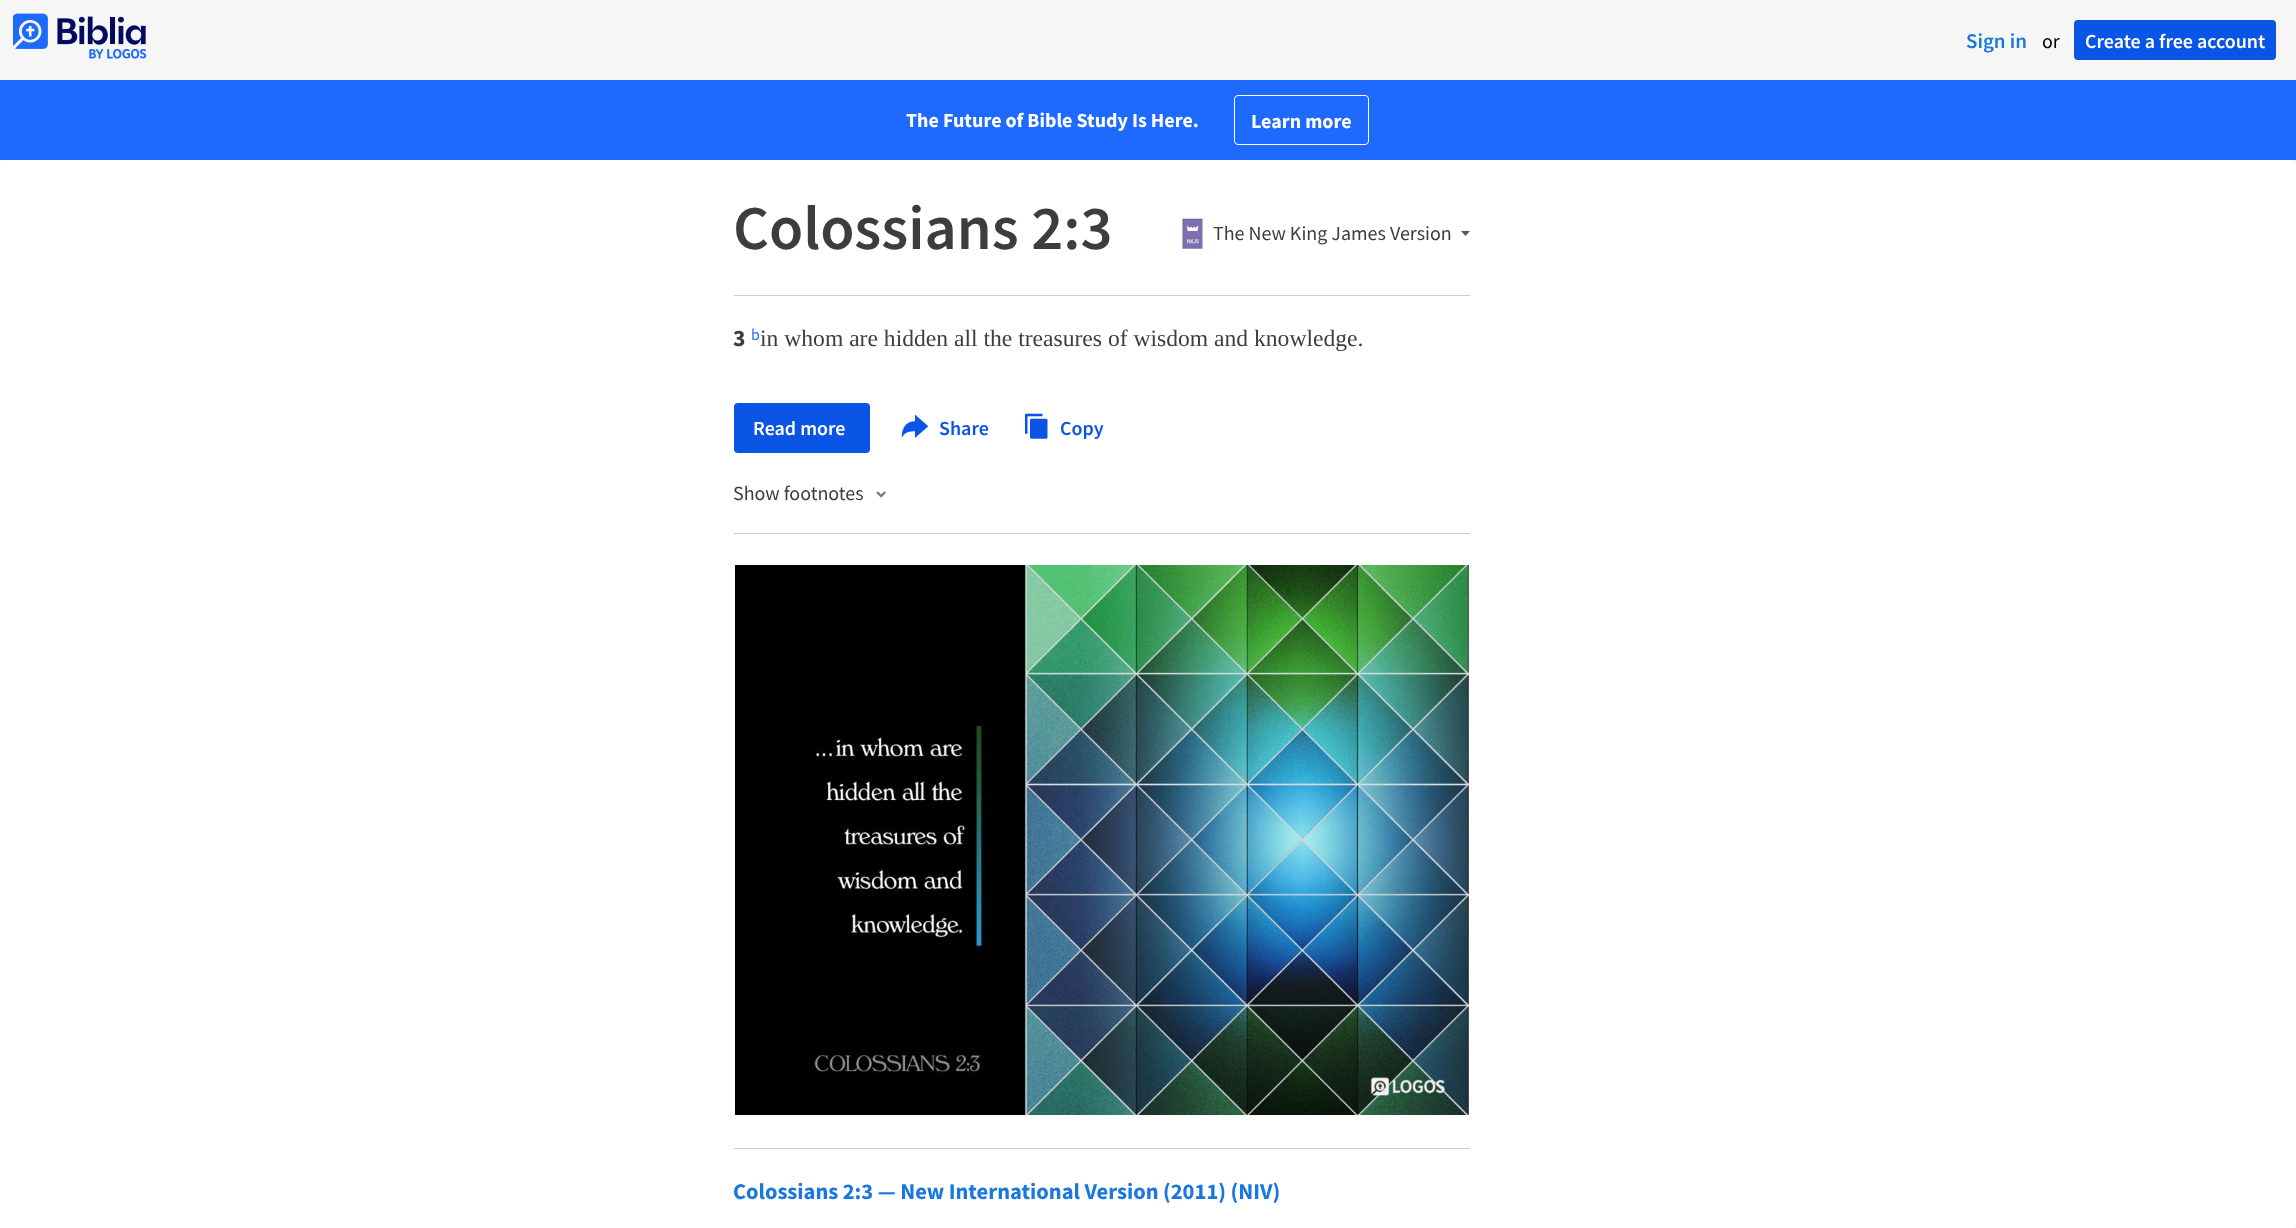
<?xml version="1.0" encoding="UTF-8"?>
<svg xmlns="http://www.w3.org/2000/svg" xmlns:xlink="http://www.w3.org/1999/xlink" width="2296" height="1228">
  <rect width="100%" height="100%" fill="#f6f6f6" />
  <image x="13" y="13" width="134" height="46" xlink:href="image1.png" />
  <rect x="2074" y="20" width="202" height="40" rx="4" fill="#0a55e6" />
  <rect y="80" width="2296" height="80" fill="#1e6afe" />
  <rect x="1234.5" y="95.5" width="134" height="49" rx="3.5" fill="none" stroke="#ffffff" />
  <rect x="-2" y="160" width="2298" height="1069" rx="5" fill="#ffffff" />
  <rect x="734" y="295" width="736" height="1" fill="#cccccc" />
  <image x="1182" y="218" width="21" height="31" xlink:href="image2.png" />
  <path d="M 1465.5 236 l 4.5 -5 h -9 z" fill="#585858" fill-rule="evenodd" />
  <rect x="734" y="403" width="136" height="50" rx="4" fill="#0a55e6" />
  <image x="901" y="414" width="28" height="24" xlink:href="image3.png" />
  <image x="1025" y="413" width="23" height="26" xlink:href="image4.png" />
  <image x="876" y="491" width="10" height="7" xlink:href="image5.png" />
  <rect x="734" y="533" width="736" height="1" fill="#cccccc" />
  <image x="735" y="565" width="734" height="550" xlink:href="image6.png" />
  <rect x="734" y="1148" width="736" height="1" fill="#cccccc" />
  <text x="1966" y="48" style="font-family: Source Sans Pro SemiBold; font-size: 21px; font-weight: 600; fill: #1977de">Sign in</text>
  <text x="2042" y="48" style="font-family: Source Sans Pro; font-size: 20px; fill: #000000">or</text>
  <text x="2085" y="48" style="font-family: Source Sans Pro SemiBold; font-size: 20px; font-weight: 600; fill: #ffffff">Create a free account</text>
  <text x="906" y="127" style="font-family: Source Sans Pro; font-size: 20px; font-weight: bold; fill: #ffffff">The Future of Bible Study Is Here.</text>
  <text x="1251" y="128" style="font-family: Source Sans Pro; font-size: 20px; font-weight: bold; fill: #ffffff">Learn more</text>
  <text x="733" y="249" style="font-family: Source Sans Pro SemiBold; font-size: 62.5px; font-weight: 600; fill: #3d3d3d">Colossians 2:3</text>
  <text x="1213" y="240" style="font-family: Source Sans Pro; font-size: 20px; fill: #3d3d3d">The New King James Version</text>
  <text x="733" y="346" style="font-family: Source Sans Pro; font-size: 23.6px; font-weight: bold; fill: #3d3d3d">3</text>
  <text x="751" y="340" style="font-family: Source Sans Pro; font-size: 16px; fill: #1977de">b</text>
  <text x="760" y="346" style="font-family: Liberation Serif; font-size: 23.6px; fill: #3d3d3d">in whom are hidden all the treasures of wisdom and knowledge.</text>
  <text x="753" y="435" style="font-family: Source Sans Pro SemiBold; font-size: 20px; font-weight: 600; fill: #ffffff">Read more</text>
  <text x="939" y="435" style="font-family: Source Sans Pro SemiBold; font-size: 20px; font-weight: 600; fill: #0a55e6">Share</text>
  <text x="1060" y="435" style="font-family: Source Sans Pro SemiBold; font-size: 20px; font-weight: 600; fill: #0a55e6">Copy</text>
  <text x="733" y="500" style="font-family: Source Sans Pro; font-size: 20px; fill: #3d3d3d">Show footnotes</text>
  <text x="733" y="1199" style="font-family: Source Sans Pro; font-size: 22.5px; font-weight: bold; fill: #1977de">Colossians 2:3 — New International Version (2011) (NIV)</text>
</svg>
